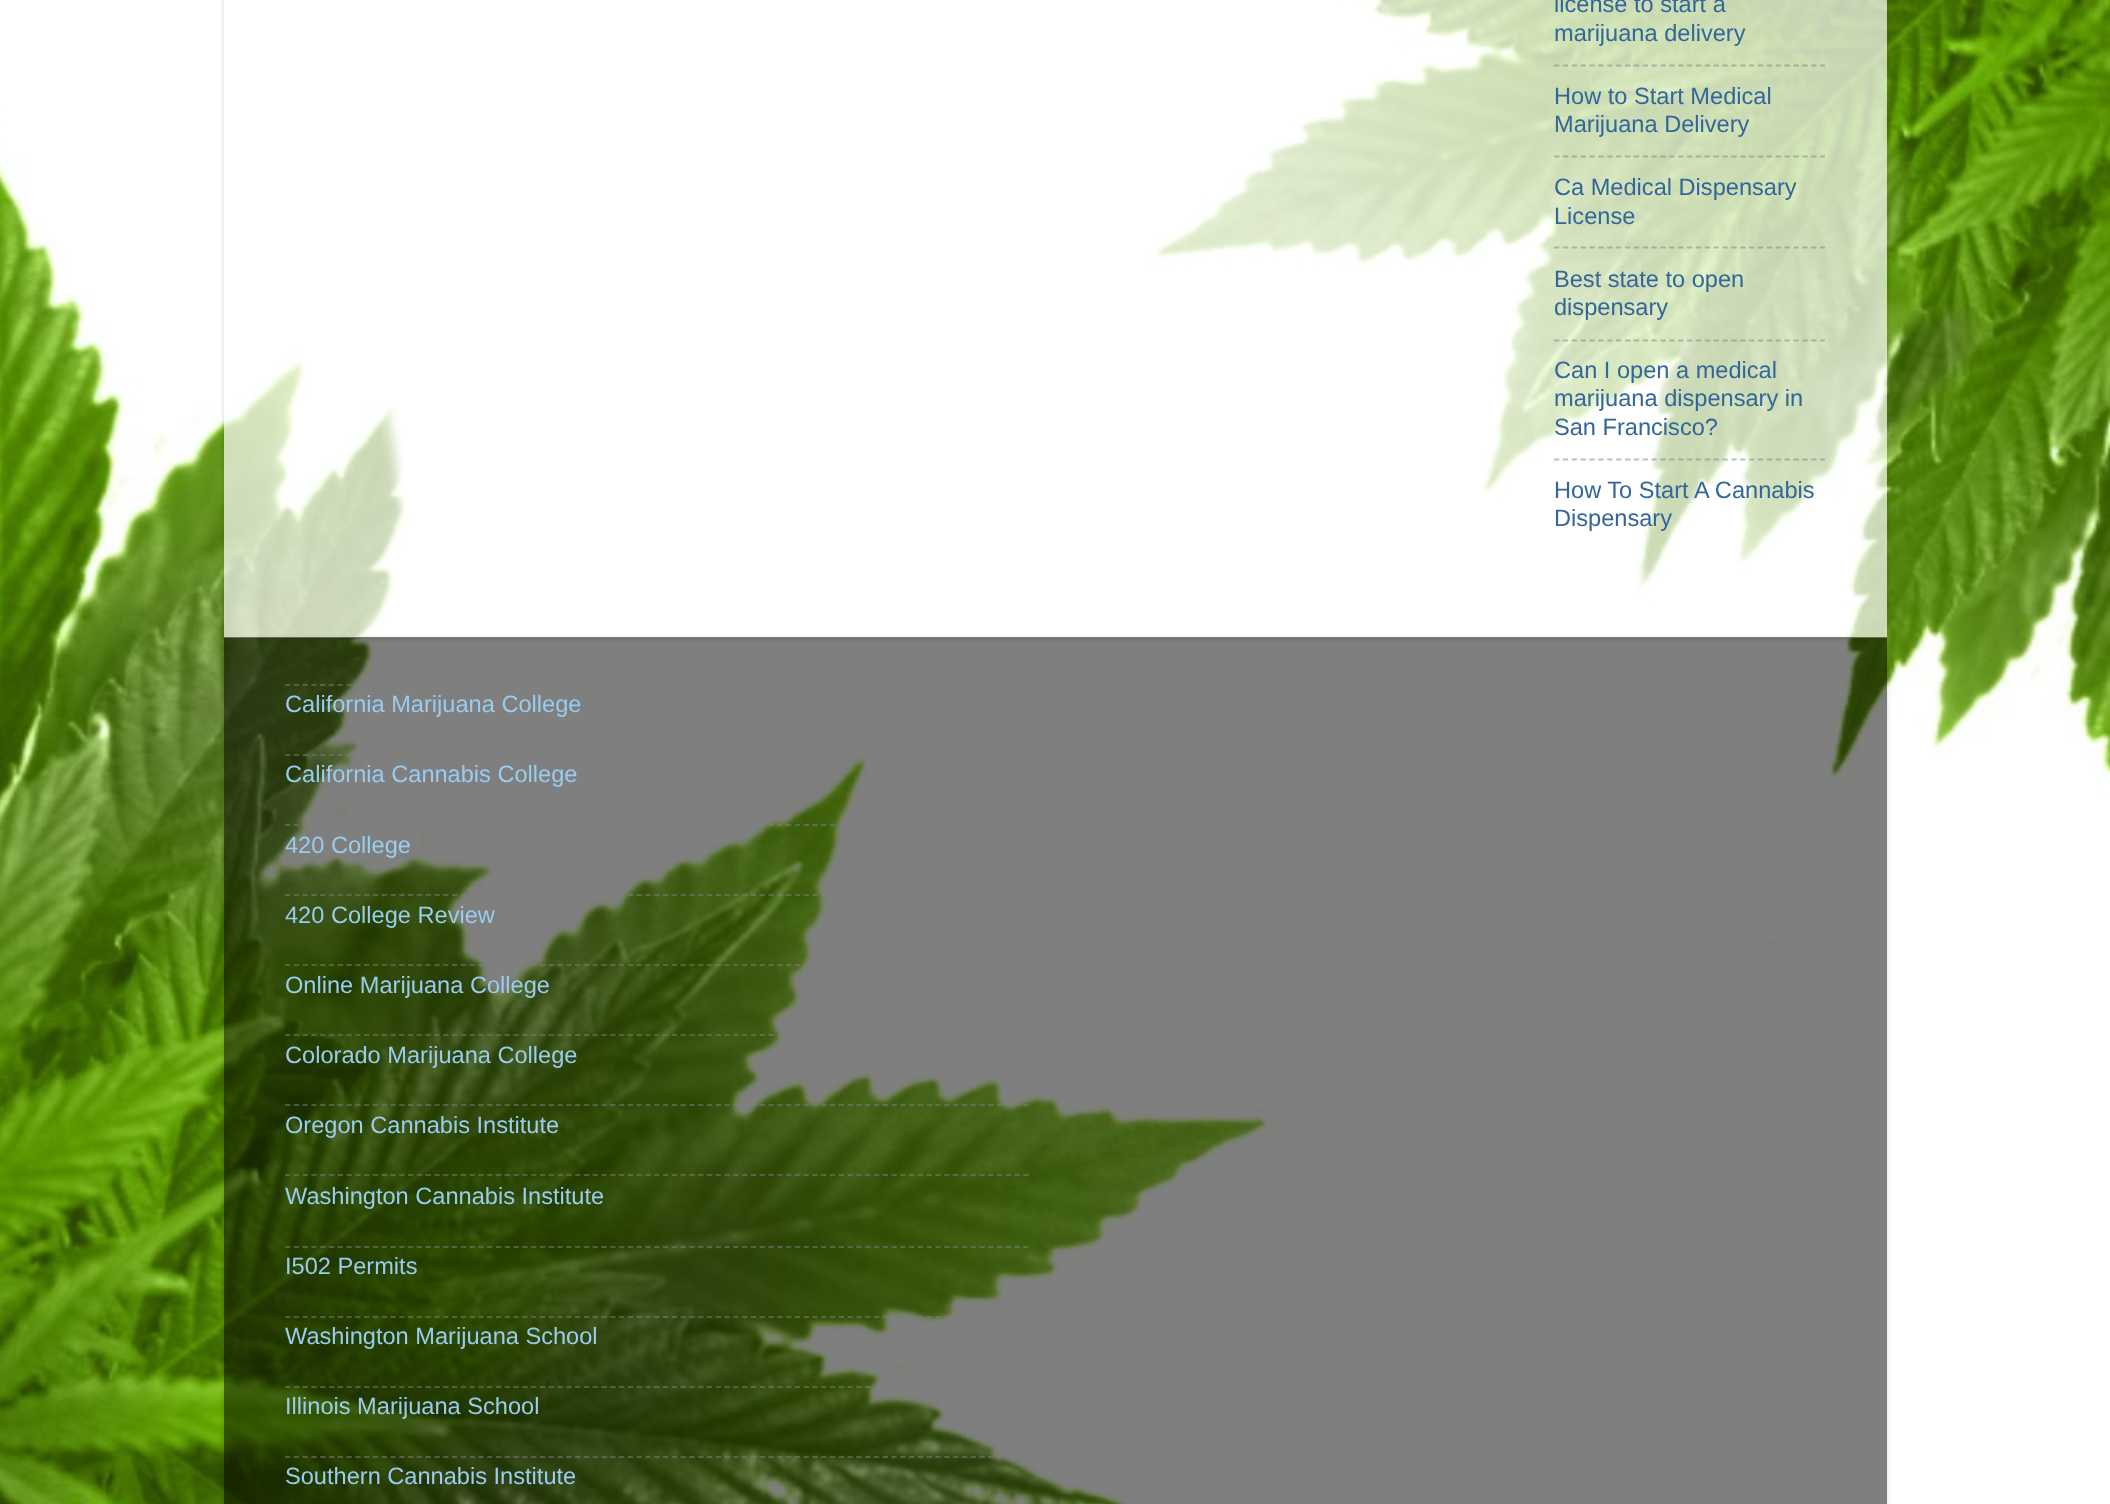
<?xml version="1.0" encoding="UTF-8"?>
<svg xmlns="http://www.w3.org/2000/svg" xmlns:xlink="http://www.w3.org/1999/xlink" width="2110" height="1504">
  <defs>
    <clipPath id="clip1"><path d="M 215 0 h 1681 v 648 h -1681 z m 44 -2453 h 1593 c 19.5 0 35 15.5 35 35 v 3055 h -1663 v -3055 c 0 -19.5 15.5 -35 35 -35 z" clip-rule="evenodd" /></clipPath>
    <clipPath id="clip2"><path d="M 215 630 h 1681 v 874 h -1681 z m 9 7 h 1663 v 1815 c 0 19.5 -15.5 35 -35 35 h -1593 c -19.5 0 -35 -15.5 -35 -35 z" clip-rule="evenodd" /></clipPath>
  </defs>
  <rect width="100%" height="100%" fill="#ffffff" />
  <image x="0" y="0" width="2110" height="1504" xlink:href="image1.png" />
  <g clip-path="url(#clip1)">
    <rect x="224" y="-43" width="1663" height="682" rx="35" fill="#000000" fill-opacity="0.15" filter="blur(2.5px)" />
  </g>
  <rect x="224" width="1663" height="638" fill="#ffffff" fill-opacity="0.7" />
  <path d="M 1554 65.5 h 271" fill="none" stroke="#808080" stroke-opacity="0.5" stroke-width="1.8" stroke-dasharray="5.25 3.62" />
  <path d="M 1554 156.5 h 271" fill="none" stroke="#808080" stroke-opacity="0.5" stroke-width="1.8" stroke-dasharray="5.25 3.62" />
  <path d="M 1554 247.5 h 271" fill="none" stroke="#808080" stroke-opacity="0.5" stroke-width="1.8" stroke-dasharray="5.25 3.62" />
  <path d="M 1554 340.5 h 271" fill="none" stroke="#808080" stroke-opacity="0.5" stroke-width="1.8" stroke-dasharray="5.25 3.62" />
  <path d="M 1554 459.5 h 271" fill="none" stroke="#808080" stroke-opacity="0.5" stroke-width="1.8" stroke-dasharray="5.25 3.62" />
  <g clip-path="url(#clip2)">
    <rect x="224" y="639" width="1663" height="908" rx="35" fill="#000000" fill-opacity="0.15" filter="blur(2.5px)" />
  </g>
  <rect x="224" y="637" width="1663" height="867" fill="#000000" fill-opacity="0.5" />
  <path d="M 285 685 h 744" fill="none" stroke="#808080" stroke-opacity="0.5" stroke-width="1.8" stroke-dasharray="5.25 3.54" />
  <path d="M 285 755 h 744" fill="none" stroke="#808080" stroke-opacity="0.5" stroke-width="1.8" stroke-dasharray="5.25 3.54" />
  <path d="M 285 825 h 744" fill="none" stroke="#808080" stroke-opacity="0.5" stroke-width="1.8" stroke-dasharray="5.25 3.54" />
  <path d="M 285 895 h 744" fill="none" stroke="#808080" stroke-opacity="0.5" stroke-width="1.8" stroke-dasharray="5.25 3.54" />
  <path d="M 285 965 h 744" fill="none" stroke="#808080" stroke-opacity="0.5" stroke-width="1.8" stroke-dasharray="5.25 3.54" />
  <path d="M 285 1035 h 744" fill="none" stroke="#808080" stroke-opacity="0.5" stroke-width="1.8" stroke-dasharray="5.25 3.54" />
  <path d="M 285 1105 h 744" fill="none" stroke="#808080" stroke-opacity="0.5" stroke-width="1.8" stroke-dasharray="5.25 3.54" />
  <path d="M 285 1175 h 744" fill="none" stroke="#808080" stroke-opacity="0.5" stroke-width="1.8" stroke-dasharray="5.25 3.54" />
  <path d="M 285 1247 h 744" fill="none" stroke="#808080" stroke-opacity="0.5" stroke-width="1.8" stroke-dasharray="5.25 3.54" />
  <path d="M 285 1317 h 744" fill="none" stroke="#808080" stroke-opacity="0.5" stroke-width="1.8" stroke-dasharray="5.25 3.54" />
  <path d="M 285 1387 h 744" fill="none" stroke="#808080" stroke-opacity="0.5" stroke-width="1.8" stroke-dasharray="5.25 3.54" />
  <path d="M 285 1457 h 744" fill="none" stroke="#808080" stroke-opacity="0.5" stroke-width="1.8" stroke-dasharray="5.25 3.54" />
  <text x="1554" y="12" style="font-family: Liberation Sans; font-size: 23.6px; fill: #336699">license to start a</text>
  <text x="1554" y="41" style="font-family: Liberation Sans; font-size: 23.6px; fill: #336699">marijuana delivery</text>
  <text x="1554" y="104" style="font-family: Liberation Sans; font-size: 23.6px; fill: #336699">How to Start Medical</text>
  <text x="1554" y="132" style="font-family: Liberation Sans; font-size: 23.6px; fill: #336699">Marijuana Delivery</text>
  <text x="1554" y="195" style="font-family: Liberation Sans; font-size: 23.6px; fill: #336699">Ca Medical Dispensary</text>
  <text x="1554" y="224" style="font-family: Liberation Sans; font-size: 23.6px; fill: #336699">License</text>
  <text x="1554" y="287" style="font-family: Liberation Sans; font-size: 23.6px; fill: #336699">Best state to open</text>
  <text x="1554" y="315" style="font-family: Liberation Sans; font-size: 23.6px; fill: #336699">dispensary</text>
  <text x="1554" y="378" style="font-family: Liberation Sans; font-size: 23.6px; fill: #336699">Can I open a medical</text>
  <text x="1554" y="406" style="font-family: Liberation Sans; font-size: 23.6px; fill: #336699">marijuana dispensary in</text>
  <text x="1554" y="435" style="font-family: Liberation Sans; font-size: 23.6px; fill: #336699">San Francisco?</text>
  <text x="1554" y="498" style="font-family: Liberation Sans; font-size: 23.6px; fill: #336699">How To Start A Cannabis</text>
  <text x="1554" y="526" style="font-family: Liberation Sans; font-size: 23.6px; fill: #336699">Dispensary</text>
  <text x="285" y="712" style="font-family: Liberation Sans; font-size: 23.6px; fill: #99ccee">California Marijuana College</text>
  <text x="285" y="782" style="font-family: Liberation Sans; font-size: 23.6px; fill: #99ccee">California Cannabis College</text>
  <text x="285" y="853" style="font-family: Liberation Sans; font-size: 23.6px; fill: #99ccee">420 College</text>
  <text x="285" y="923" style="font-family: Liberation Sans; font-size: 23.6px; fill: #99ccee">420 College Review</text>
  <text x="285" y="993" style="font-family: Liberation Sans; font-size: 23.6px; fill: #99ccee">Online Marijuana College</text>
  <text x="285" y="1063" style="font-family: Liberation Sans; font-size: 23.6px; fill: #99ccee">Colorado Marijuana College</text>
  <text x="285" y="1133" style="font-family: Liberation Sans; font-size: 23.6px; fill: #99ccee">Oregon Cannabis Institute</text>
  <text x="285" y="1204" style="font-family: Liberation Sans; font-size: 23.6px; fill: #99ccee">Washington Cannabis Institute</text>
  <text x="285" y="1274" style="font-family: Liberation Sans; font-size: 23.6px; fill: #99ccee">I502 Permits</text>
  <text x="285" y="1344" style="font-family: Liberation Sans; font-size: 23.6px; fill: #99ccee">Washington Marijuana School</text>
  <text x="285" y="1414" style="font-family: Liberation Sans; font-size: 23.6px; fill: #99ccee">Illinois Marijuana School</text>
  <text x="285" y="1484" style="font-family: Liberation Sans; font-size: 23.6px; fill: #99ccee">Southern Cannabis Institute</text>
</svg>
